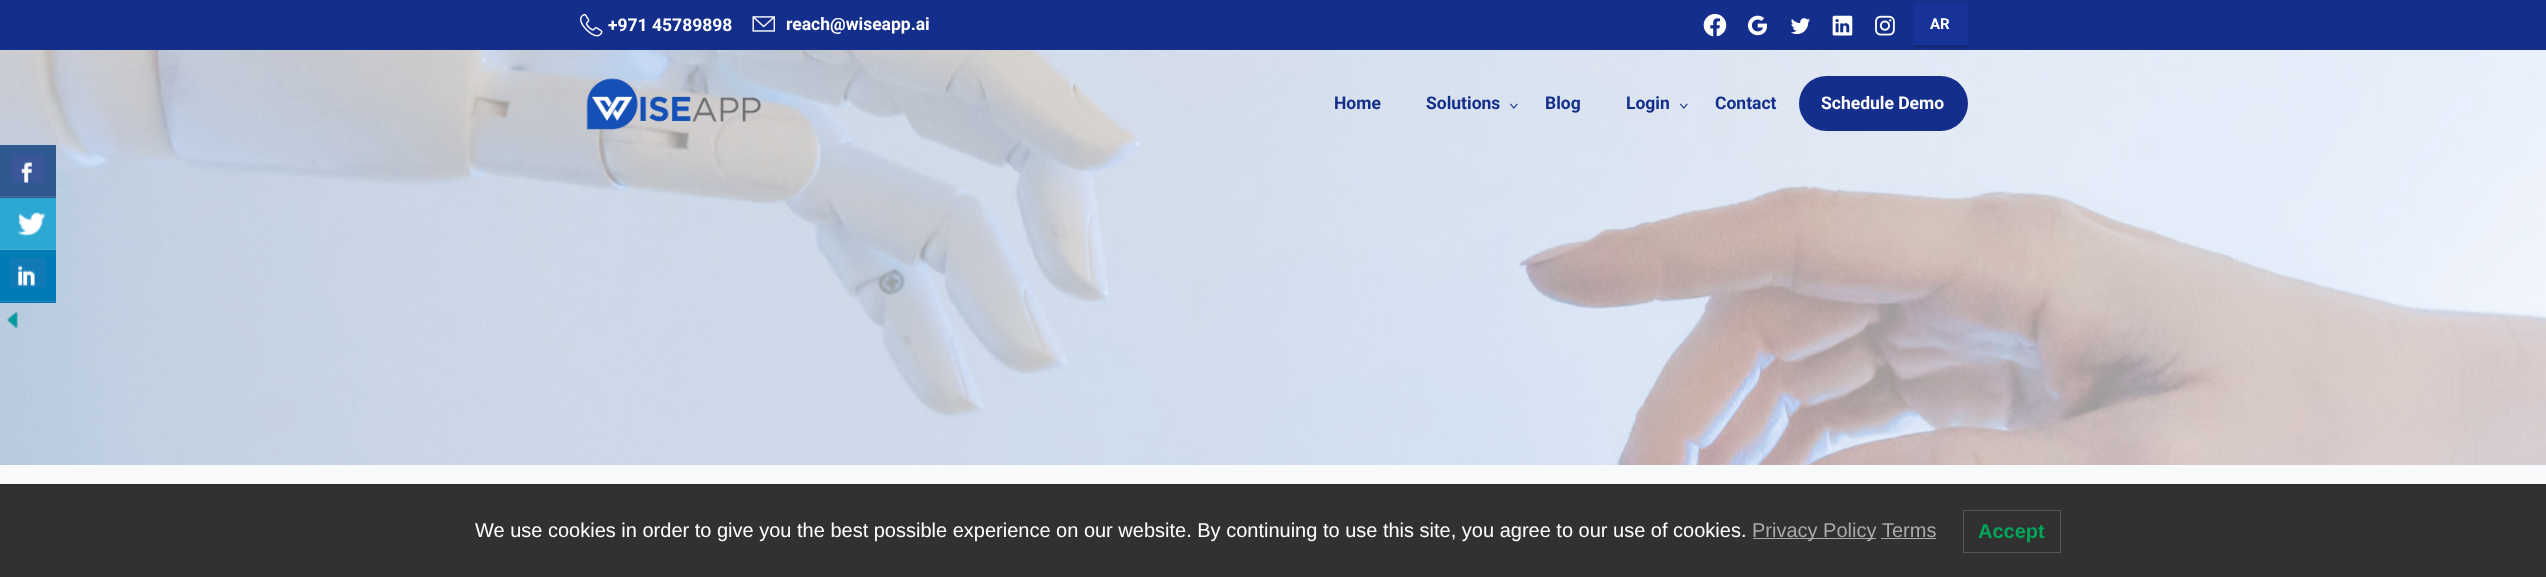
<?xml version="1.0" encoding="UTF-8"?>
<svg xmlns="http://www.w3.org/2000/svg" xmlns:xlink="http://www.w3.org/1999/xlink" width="2546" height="577">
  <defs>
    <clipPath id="clip1"><rect x="1913" y="3" width="55" height="45" rx="4" /></clipPath>
  </defs>
  <rect width="100%" height="100%" fill="#ffffff" />
  <rect width="2546" height="50" fill="#142e8b" />
  <image x="580" y="13" width="23" height="24" xlink:href="image1.png" />
  <image x="752" y="16" width="23" height="16" xlink:href="image2.png" />
  <image x="1703" y="13" width="24" height="24" xlink:href="image3.png" />
  <image x="1747" y="15" width="20" height="21" xlink:href="image4.png" />
  <image x="1790" y="18" width="20" height="17" xlink:href="image5.png" />
  <image x="1832" y="15" width="21" height="21" xlink:href="image6.png" />
  <image x="1875" y="15" width="20" height="21" xlink:href="image7.png" />
  <rect x="1913" y="3" width="55" height="45" rx="4" fill="#173398" />
  <g clip-path="url(#clip1)">
    <rect x="1913" y="45" width="55" height="3" rx="1.5" fill="#000000" fill-opacity="0.2" />
  </g>
  <image x="0" y="50" width="2546" height="415" xlink:href="image11.png" />
  <image x="586" y="78" width="175" height="52" xlink:href="image8.png" />
  <image x="1510" y="103" width="8" height="6" xlink:href="image9.png" />
  <image x="1680" y="103" width="8" height="6" xlink:href="image10.png" />
  <rect x="1799" y="76" width="169" height="55" rx="27.5" fill="#142e8b" />
  <rect y="465" width="2546" height="19" fill="#f8f9fa" />
  <rect y="485" width="2546" height="92" fill="#313131" />
  <image x="580" y="553" width="456" height="24" xlink:href="image12.png" />
  <rect y="145" width="56" height="53" fill="#305891" />
  <rect y="196" width="56" height="1" fill="#45699c" />
  <image x="11" y="154" width="35" height="29" xlink:href="image13.png" />
  <rect y="198" width="56" height="51" fill="#2ca8d2" />
  <rect y="249" width="56" height="1" fill="#41b1d7" />
  <image x="17" y="212" width="29" height="24" xlink:href="image14.png" />
  <rect y="250" width="56" height="53" fill="#007bb6" />
  <rect y="301" width="56" height="1" fill="#1a88bd" />
  <image x="10" y="258" width="36" height="30" xlink:href="image15.png" />
  <image x="7" y="311" width="11" height="18" xlink:href="image16.png" />
  <rect y="484" width="2546" height="1" fill="#2b2b2b" />
  <rect x="1753" y="538" width="123" height="1" fill="#aaaaaa" />
  <rect x="1881" y="538" width="55" height="1" fill="#aaaaaa" />
  <rect x="1963.5" y="510.5" width="97" height="42" fill="none" stroke="#555555" />
  <text x="608" y="31" style="font-family: Roboto; font-size: 17.5px; font-weight: bold; fill: #ffffff">+971 45789898</text>
  <text x="786" y="30" style="font-family: Roboto; font-size: 17.5px; font-weight: bold; fill: #ffffff">reach@wiseapp.ai</text>
  <text x="1930" y="29" style="font-family: Roboto; font-size: 15px; font-weight: bold; fill: #ffffff">AR</text>
  <text x="1334" y="109" style="font-family: Roboto; font-size: 17.5px; font-weight: bold; fill: #142e8b">Home</text>
  <text x="1426" y="109" style="font-family: Roboto; font-size: 17.5px; font-weight: bold; fill: #142e8b">Solutions</text>
  <text x="1545" y="109" style="font-family: Roboto; font-size: 17.5px; font-weight: bold; fill: #142e8b">Blog</text>
  <text x="1626" y="109" style="font-family: Roboto; font-size: 17.5px; font-weight: bold; fill: #142e8b">Login</text>
  <text x="1715" y="109" style="font-family: Roboto; font-size: 17.5px; font-weight: bold; fill: #142e8b">Contact</text>
  <text x="1821" y="109" style="font-family: Roboto; font-size: 17.5px; font-weight: bold; fill: #ffffff">Schedule Demo</text>
  <text x="475" y="537" style="font-family: Liberation Sans; font-size: 20px; fill: #ffffff">We use cookies in order to give you the best possible experience on our website. By continuing to use this site, you agree to our use of cookies.</text>
  <text x="1752" y="537" style="font-family: Liberation Sans; font-size: 20px; fill: #aaaaaa">Privacy Policy</text>
  <text x="1882" y="537" style="font-family: Liberation Sans; font-size: 20px; fill: #aaaaaa">Terms</text>
  <text x="1978" y="538" style="font-family: Liberation Sans; font-size: 20px; font-weight: bold; fill: #00a65a">Accept</text>
</svg>
